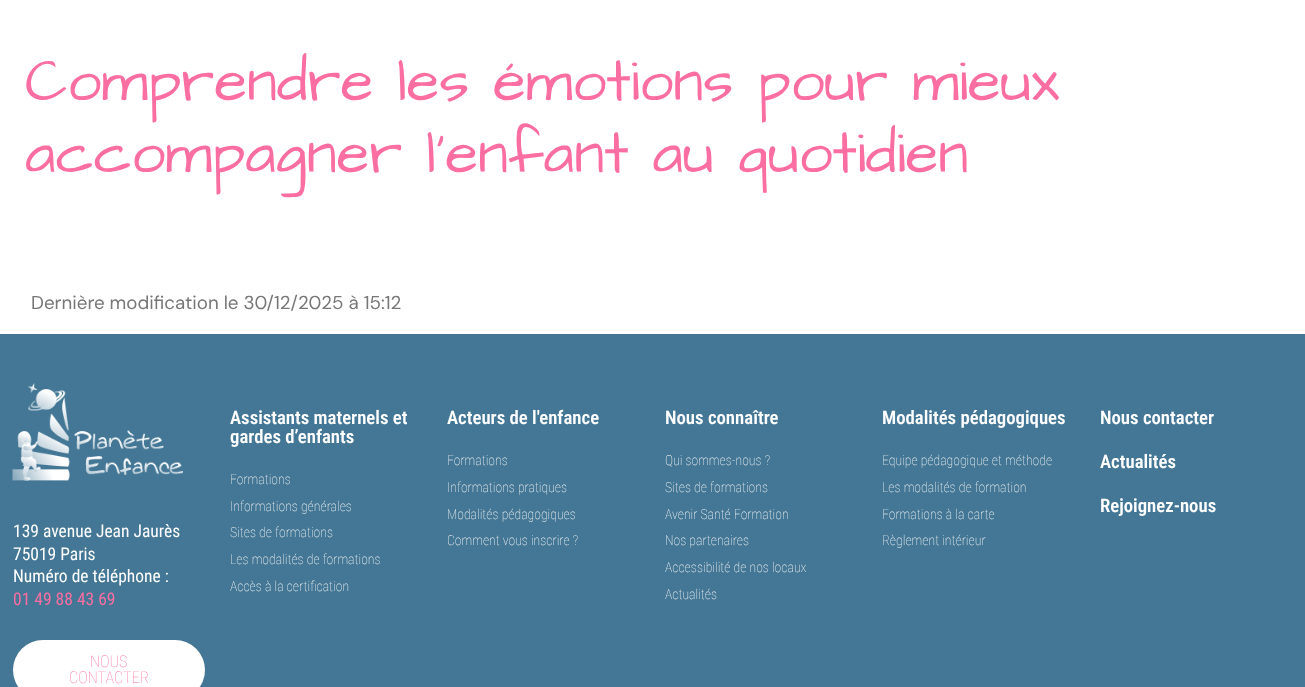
<?xml version="1.0" encoding="UTF-8"?>
<svg xmlns="http://www.w3.org/2000/svg" xmlns:xlink="http://www.w3.org/1999/xlink" width="1305" height="687">
  <rect width="100%" height="100%" fill="#ffffff" />
  <rect y="334" width="1305" height="353" fill="#447795" />
  <image x="12" y="383" width="171" height="98" xlink:href="image1.png" />
  <rect x="13" y="640" width="192" height="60" rx="30" fill="#ffffff" />
  <text x="25" y="100" style="font-family: Architects Daughter; font-size: 60px; fill: #fa6ea1">Comprendre les émotions pour mieux</text>
  <text x="25" y="172" style="font-family: Architects Daughter; font-size: 60px; fill: #fa6ea1">accompagner l’enfant au quotidien</text>
  <text x="31" y="309" style="font-family: DM Sans; font-size: 18.75px; fill: #777777">Dernière modification le 30/12/2025 à 15:12</text>
  <text x="230" y="424" style="font-family: Roboto Condensed; font-size: 18.75px; font-weight: 600; fill: #ffffff">Assistants maternels et</text>
  <text x="230" y="443" style="font-family: Roboto Condensed; font-size: 18.75px; font-weight: 600; fill: #ffffff">gardes d’enfants</text>
  <text x="230" y="484" style="font-family: Roboto Condensed; font-size: 13.75px; font-weight: 100; fill: #ffffff">Formations</text>
  <text x="230" y="511" style="font-family: Roboto Condensed; font-size: 13.75px; font-weight: 100; fill: #ffffff">Informations générales</text>
  <text x="230" y="537" style="font-family: Roboto Condensed; font-size: 13.75px; font-weight: 100; fill: #ffffff">Sites de formations</text>
  <text x="230" y="564" style="font-family: Roboto Condensed; font-size: 13.75px; font-weight: 100; fill: #ffffff">Les modalités de formations</text>
  <text x="230" y="591" style="font-family: Roboto Condensed; font-size: 13.75px; font-weight: 100; fill: #ffffff">Accès à la certification</text>
  <text x="447" y="424" style="font-family: Roboto Condensed; font-size: 18.75px; font-weight: 600; fill: #ffffff">Acteurs de l'enfance</text>
  <text x="447" y="465" style="font-family: Roboto Condensed; font-size: 13.75px; font-weight: 100; fill: #ffffff">Formations</text>
  <text x="447" y="492" style="font-family: Roboto Condensed; font-size: 13.75px; font-weight: 100; fill: #ffffff">Informations pratiques</text>
  <text x="447" y="519" style="font-family: Roboto Condensed; font-size: 13.75px; font-weight: 100; fill: #ffffff">Modalités pédagogiques</text>
  <text x="447" y="545" style="font-family: Roboto Condensed; font-size: 13.75px; font-weight: 100; fill: #ffffff">Comment vous inscrire ?</text>
  <text x="665" y="424" style="font-family: Roboto Condensed; font-size: 18.75px; font-weight: 600; fill: #ffffff">Nous connaître</text>
  <text x="665" y="465" style="font-family: Roboto Condensed; font-size: 13.75px; font-weight: 100; fill: #ffffff">Qui sommes-nous ?</text>
  <text x="665" y="492" style="font-family: Roboto Condensed; font-size: 13.75px; font-weight: 100; fill: #ffffff">Sites de formations</text>
  <text x="665" y="519" style="font-family: Roboto Condensed; font-size: 13.75px; font-weight: 100; fill: #ffffff">Avenir Santé Formation</text>
  <text x="665" y="545" style="font-family: Roboto Condensed; font-size: 13.75px; font-weight: 100; fill: #ffffff">Nos partenaires</text>
  <text x="665" y="572" style="font-family: Roboto Condensed; font-size: 13.75px; font-weight: 100; fill: #ffffff">Accessibilité de nos locaux</text>
  <text x="665" y="599" style="font-family: Roboto Condensed; font-size: 13.75px; font-weight: 100; fill: #ffffff">Actualités</text>
  <text x="882" y="424" style="font-family: Roboto Condensed; font-size: 18.75px; font-weight: 600; fill: #ffffff">Modalités pédagogiques</text>
  <text x="882" y="465" style="font-family: Roboto Condensed; font-size: 13.75px; font-weight: 100; fill: #ffffff">Equipe pédagogique et méthode</text>
  <text x="882" y="492" style="font-family: Roboto Condensed; font-size: 13.75px; font-weight: 100; fill: #ffffff">Les modalités de formation</text>
  <text x="882" y="519" style="font-family: Roboto Condensed; font-size: 13.75px; font-weight: 100; fill: #ffffff">Formations à la carte</text>
  <text x="882" y="545" style="font-family: Roboto Condensed; font-size: 13.75px; font-weight: 100; fill: #ffffff">Règlement intérieur</text>
  <text x="1100" y="424" style="font-family: Roboto Condensed; font-size: 18.75px; font-weight: 600; fill: #ffffff">Nous contacter</text>
  <text x="1100" y="468" style="font-family: Roboto Condensed; font-size: 18.75px; font-weight: 600; fill: #ffffff">Actualités</text>
  <text x="1100" y="512" style="font-family: Roboto Condensed; font-size: 18.75px; font-weight: 600; fill: #ffffff">Rejoignez-nous</text>
  <text x="13" y="537" style="font-family: Roboto Condensed; font-size: 17.5px; fill: #ffffff">139 avenue Jean Jaurès</text>
  <text x="13" y="560" style="font-family: Roboto Condensed; font-size: 17.5px; fill: #ffffff">75019 Paris</text>
  <text x="13" y="582" style="font-family: Roboto Condensed; font-size: 17.5px; fill: #ffffff">Numéro de téléphone :</text>
  <text x="13" y="605" style="font-family: Roboto Condensed; font-size: 17.5px; fill: #fa6ea1">01 49 88 43 69</text>
  <text x="90" y="667" style="font-family: Roboto Condensed; font-size: 16.25px; font-weight: 100; fill: #fa6ea1">NOUS</text>
  <text x="69" y="683" style="font-family: Roboto Condensed; font-size: 16.25px; font-weight: 100; fill: #fa6ea1">CONTACTER</text>
</svg>
